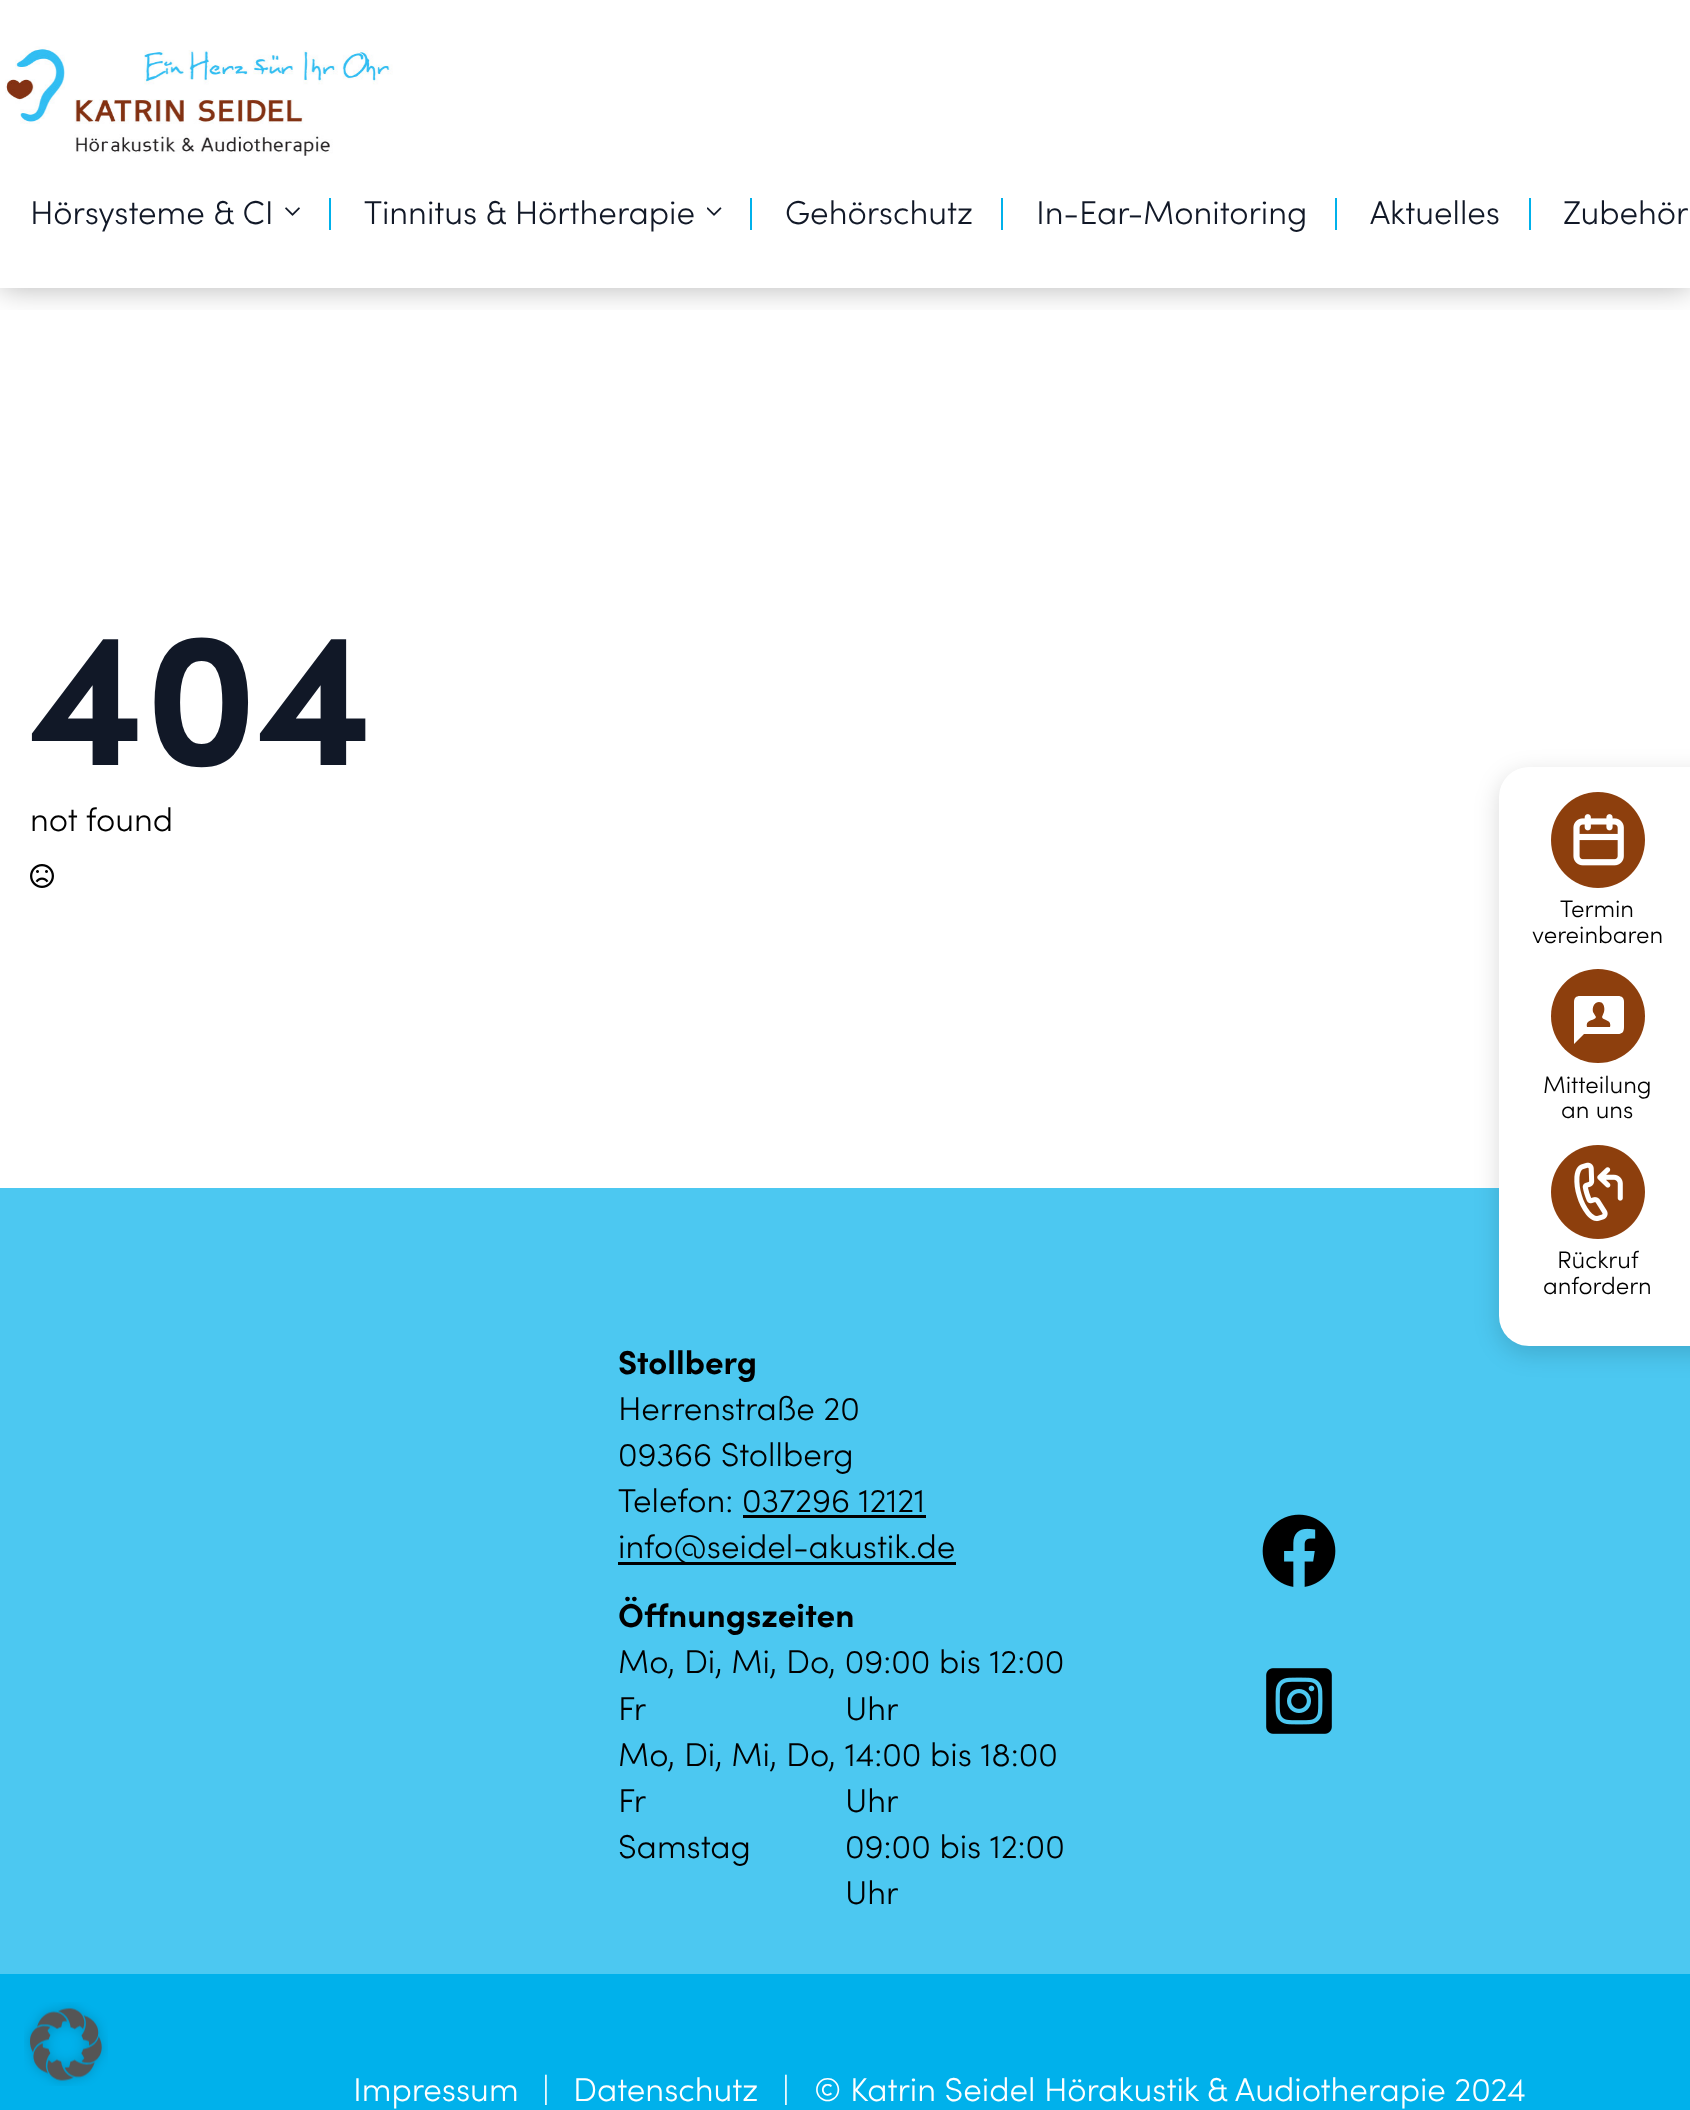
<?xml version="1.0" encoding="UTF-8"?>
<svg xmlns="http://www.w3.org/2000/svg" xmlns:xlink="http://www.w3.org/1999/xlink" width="1690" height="2110">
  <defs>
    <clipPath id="clip1"><rect x="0" y="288" width="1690" height="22" /></clipPath>
  </defs>
  <rect width="100%" height="100%" fill="#ffffff" />
  <g clip-path="url(#clip1)">
    <rect width="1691" height="288" fill="#000000" fill-opacity="0.29" filter="blur(15px)" />
  </g>
  <image x="5" y="46" width="388" height="110" xlink:href="image1.png" />
  <image x="285" y="207" width="15" height="9" xlink:href="image2.png" />
  <rect x="329" y="198" width="2" height="32" fill="#00b1eb" />
  <image x="707" y="207" width="15" height="9" xlink:href="image3.png" />
  <rect x="750" y="198" width="2" height="32" fill="#00b1eb" />
  <rect x="1001" y="198" width="2" height="32" fill="#00b1eb" />
  <rect x="1335" y="198" width="2" height="32" fill="#00b1eb" />
  <rect x="1529" y="198" width="2" height="32" fill="#00b1eb" />
  <image x="30" y="864" width="24" height="24" xlink:href="image4.png" />
  <rect y="1188" width="1690" height="786" fill="#4cc8f1" />
  <rect x="1499" y="774" width="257" height="579" rx="30" fill="#000000" fill-opacity="0.15" filter="blur(12px)" />
  <rect x="1499" y="767" width="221" height="579" rx="30" fill="#ffffff" />
  <image x="1551" y="792" width="94" height="96" xlink:href="image5.png" />
  <circle cx="1598" cy="1016" r="47" fill="#8d3f0d" />
  <path d="M 1587 1027 h 23 c 2 -8 -7 -6 -8 -10 l 2 -5 c 1 -4 0 -10 -5 -10 c -5 0 -7 6 -6 10 l 3 5 c -1 4 -11 2 -9 10 z m -13 17 v -42 c 0 -4 2 -6 6 -6 h 38 c 4 0 6 2 6 6 v 25 c 0 5 -2 7 -6 7 h -34 z" fill="#ffffff" />
  <image x="1551" y="1145" width="94" height="94" xlink:href="image6.png" />
  <rect y="1974" width="1690" height="136" fill="#00b1eb" />
  <image x="24" y="2002" width="84" height="84" xlink:href="image7.png" />
  <rect x="743" y="1515" width="183" height="3" fill="#000000" />
  <rect x="618" y="1562" width="338" height="3" fill="#000000" />
  <image x="1262" y="1514" width="74" height="73" xlink:href="image8.png" />
  <image x="1266" y="1668" width="66" height="66" xlink:href="image9.png" />
  <text x="30" y="224" style="font-family: Sofia; font-size: 33px; font-weight: 300; fill: #111827">Hörsysteme &amp; CI</text>
  <text x="364" y="224" style="font-family: Sofia; font-size: 33px; font-weight: 300; fill: #111827">Tinnitus &amp; Hörtherapie</text>
  <text x="785" y="224" style="font-family: Sofia; font-size: 33px; font-weight: 300; fill: #111827">Gehörschutz</text>
  <text x="1036" y="224" style="font-family: Sofia; font-size: 33px; font-weight: 300; fill: #111827">In-Ear-Monitoring</text>
  <text x="1370" y="224" style="font-family: Sofia; font-size: 33px; font-weight: 300; fill: #111827">Aktuelles</text>
  <text x="1563" y="224" style="font-family: Sofia; font-size: 33px; font-weight: 300; fill: #111827">Zubehör</text>
  <text x="30" y="765" style="font-family: Sofia; font-size: 192px; font-weight: bold; fill: #111827">404</text>
  <text x="30" y="831" style="font-family: Sofia; font-size: 33px; font-weight: 300; fill: #000000">not found</text>
  <text x="1560" y="917" style="font-family: Sofia; font-size: 24px; font-weight: 300; fill: #000000">Termin</text>
  <text x="1532" y="943" style="font-family: Sofia; font-size: 24px; font-weight: 300; fill: #000000">vereinbaren</text>
  <text x="1543" y="1093" style="font-family: Sofia; font-size: 24px; font-weight: 300; fill: #000000">Mitteilung</text>
  <text x="1561" y="1118" style="font-family: Sofia; font-size: 24px; font-weight: 300; fill: #000000">an uns</text>
  <text x="1557" y="1268" style="font-family: Sofia; font-size: 24px; font-weight: 300; fill: #000000">Rückruf</text>
  <text x="1543" y="1294" style="font-family: Sofia; font-size: 24px; font-weight: 300; fill: #000000">anfordern</text>
  <text x="618" y="1374" style="font-family: Sofia; font-size: 33px; font-weight: bold; fill: #000000">Stollberg</text>
  <text x="618" y="1420" style="font-family: Sofia; font-size: 33px; font-weight: 300; fill: #000000">Herrenstraße 20</text>
  <text x="618" y="1466" style="font-family: Sofia; font-size: 33px; font-weight: 300; fill: #000000">09366 Stollberg</text>
  <text x="618" y="1512" style="font-family: Sofia; font-size: 33px; font-weight: 300; fill: #000000">Telefon: 037296 12121</text>
  <text x="618" y="1558" style="font-family: Sofia; font-size: 33px; font-weight: 300; fill: #000000">info@seidel-akustik.de</text>
  <text x="618" y="1627" style="font-family: Sofia; font-size: 33px; font-weight: bold; fill: #000000">Öffnungszeiten</text>
  <text x="618" y="1673" style="font-family: Sofia; font-size: 33px; font-weight: 300; fill: #000000">Mo, Di, Mi, Do, 09:00 bis 12:00</text>
  <text x="618" y="1720" style="font-family: Sofia; font-size: 33px; font-weight: 300; fill: #000000">Fr</text>
  <text x="845" y="1720" style="font-family: Sofia; font-size: 33px; font-weight: 300; fill: #000000">Uhr</text>
  <text x="618" y="1766" style="font-family: Sofia; font-size: 33px; font-weight: 300; fill: #000000">Mo, Di, Mi, Do, 14:00 bis 18:00</text>
  <text x="618" y="1812" style="font-family: Sofia; font-size: 33px; font-weight: 300; fill: #000000">Fr</text>
  <text x="845" y="1812" style="font-family: Sofia; font-size: 33px; font-weight: 300; fill: #000000">Uhr</text>
  <text x="618" y="1858" style="font-family: Sofia; font-size: 33px; font-weight: 300; fill: #000000">Samstag</text>
  <text x="845" y="1858" style="font-family: Sofia; font-size: 33px; font-weight: 300; fill: #000000">09:00 bis 12:00</text>
  <text x="845" y="1904" style="font-family: Sofia; font-size: 33px; font-weight: 300; fill: #000000">Uhr</text>
  <text x="353" y="2101" style="font-family: Sofia; font-size: 33px; font-weight: 300; fill: #ffffff">Impressum</text>
  <text x="542" y="2101" style="font-family: Sofia; font-size: 33px; font-weight: 300; fill: #ffffff">|</text>
  <text x="573" y="2101" style="font-family: Sofia; font-size: 33px; font-weight: 300; fill: #ffffff">Datenschutz</text>
  <text x="782" y="2101" style="font-family: Sofia; font-size: 33px; font-weight: 300; fill: #ffffff">|</text>
  <text x="814" y="2101" style="font-family: Sofia; font-size: 33px; font-weight: 300; fill: #ffffff">© Katrin Seidel Hörakustik &amp; Audiotherapie 2024</text>
</svg>
